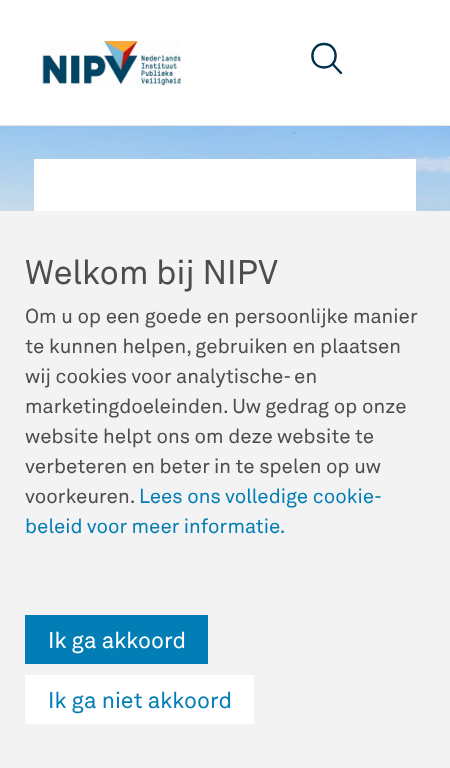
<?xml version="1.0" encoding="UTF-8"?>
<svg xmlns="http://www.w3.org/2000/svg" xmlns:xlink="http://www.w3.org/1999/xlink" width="450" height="768">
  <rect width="100%" height="100%" fill="#ffffff" />
  <rect y="125" width="450" height="1" fill="#e6e6e6" />
  <image x="42" y="40" width="139" height="46" xlink:href="image1.png" />
  <path d="M 324 44 c -15.5 0 -15.5 23.5 0 23.5 c 15.5 0 15.5 -23.5 0 -23.5 z" fill="none" stroke="#00314e" stroke-width="2.4" />
  <path d="M 333 64.5 l 8 8.5" fill="none" stroke="#00314e" stroke-width="2.4" stroke-linecap="round" />
  <image x="0" y="126" width="450" height="85" xlink:href="image2.png" />
  <rect x="34" y="159" width="382" height="52" fill="#ffffff" />
  <rect y="211" width="450" height="557" fill="#f3f3f3" />
  <rect x="25" y="615" width="183" height="49" fill="#037db6" />
  <rect x="25" y="675" width="229" height="49" fill="#ffffff" />
  <text x="25" y="284" style="font-family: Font; font-size: 33.75px; fill: #4d4d4d">Welkom bij NIPV</text>
  <text x="25" y="323" style="font-family: Font; font-size: 20px; fill: #4d4d4d">Om u op een goede en persoonlijke manier</text>
  <text x="25" y="353" style="font-family: Font; font-size: 20px; fill: #4d4d4d">te kunnen helpen, gebruiken en plaatsen</text>
  <text x="25" y="383" style="font-family: Font; font-size: 20px; fill: #4d4d4d">wij cookies voor analytische- en</text>
  <text x="25" y="413" style="font-family: Font; font-size: 20px; fill: #4d4d4d">marketingdoeleinden. Uw gedrag op onze</text>
  <text x="25" y="443" style="font-family: Font; font-size: 20px; fill: #4d4d4d">website helpt ons om deze website te</text>
  <text x="25" y="473" style="font-family: Font; font-size: 20px; fill: #4d4d4d">verbeteren en beter in te spelen op uw</text>
  <text x="25" y="503" style="font-family: Font; font-size: 20px; fill: #4d4d4d">voorkeuren.</text>
  <text x="139" y="503" style="font-family: Font; font-size: 20px; fill: #037db6">Lees ons volledige cookie-</text>
  <text x="25" y="533" style="font-family: Font; font-size: 20px; fill: #037db6">beleid voor meer informatie.</text>
  <text x="48" y="648" style="font-family: Font; font-size: 22.5px; fill: #ffffff">Ik ga akkoord</text>
  <text x="48" y="708" style="font-family: Font; font-size: 22.5px; fill: #037db6">Ik ga niet akkoord</text>
</svg>
